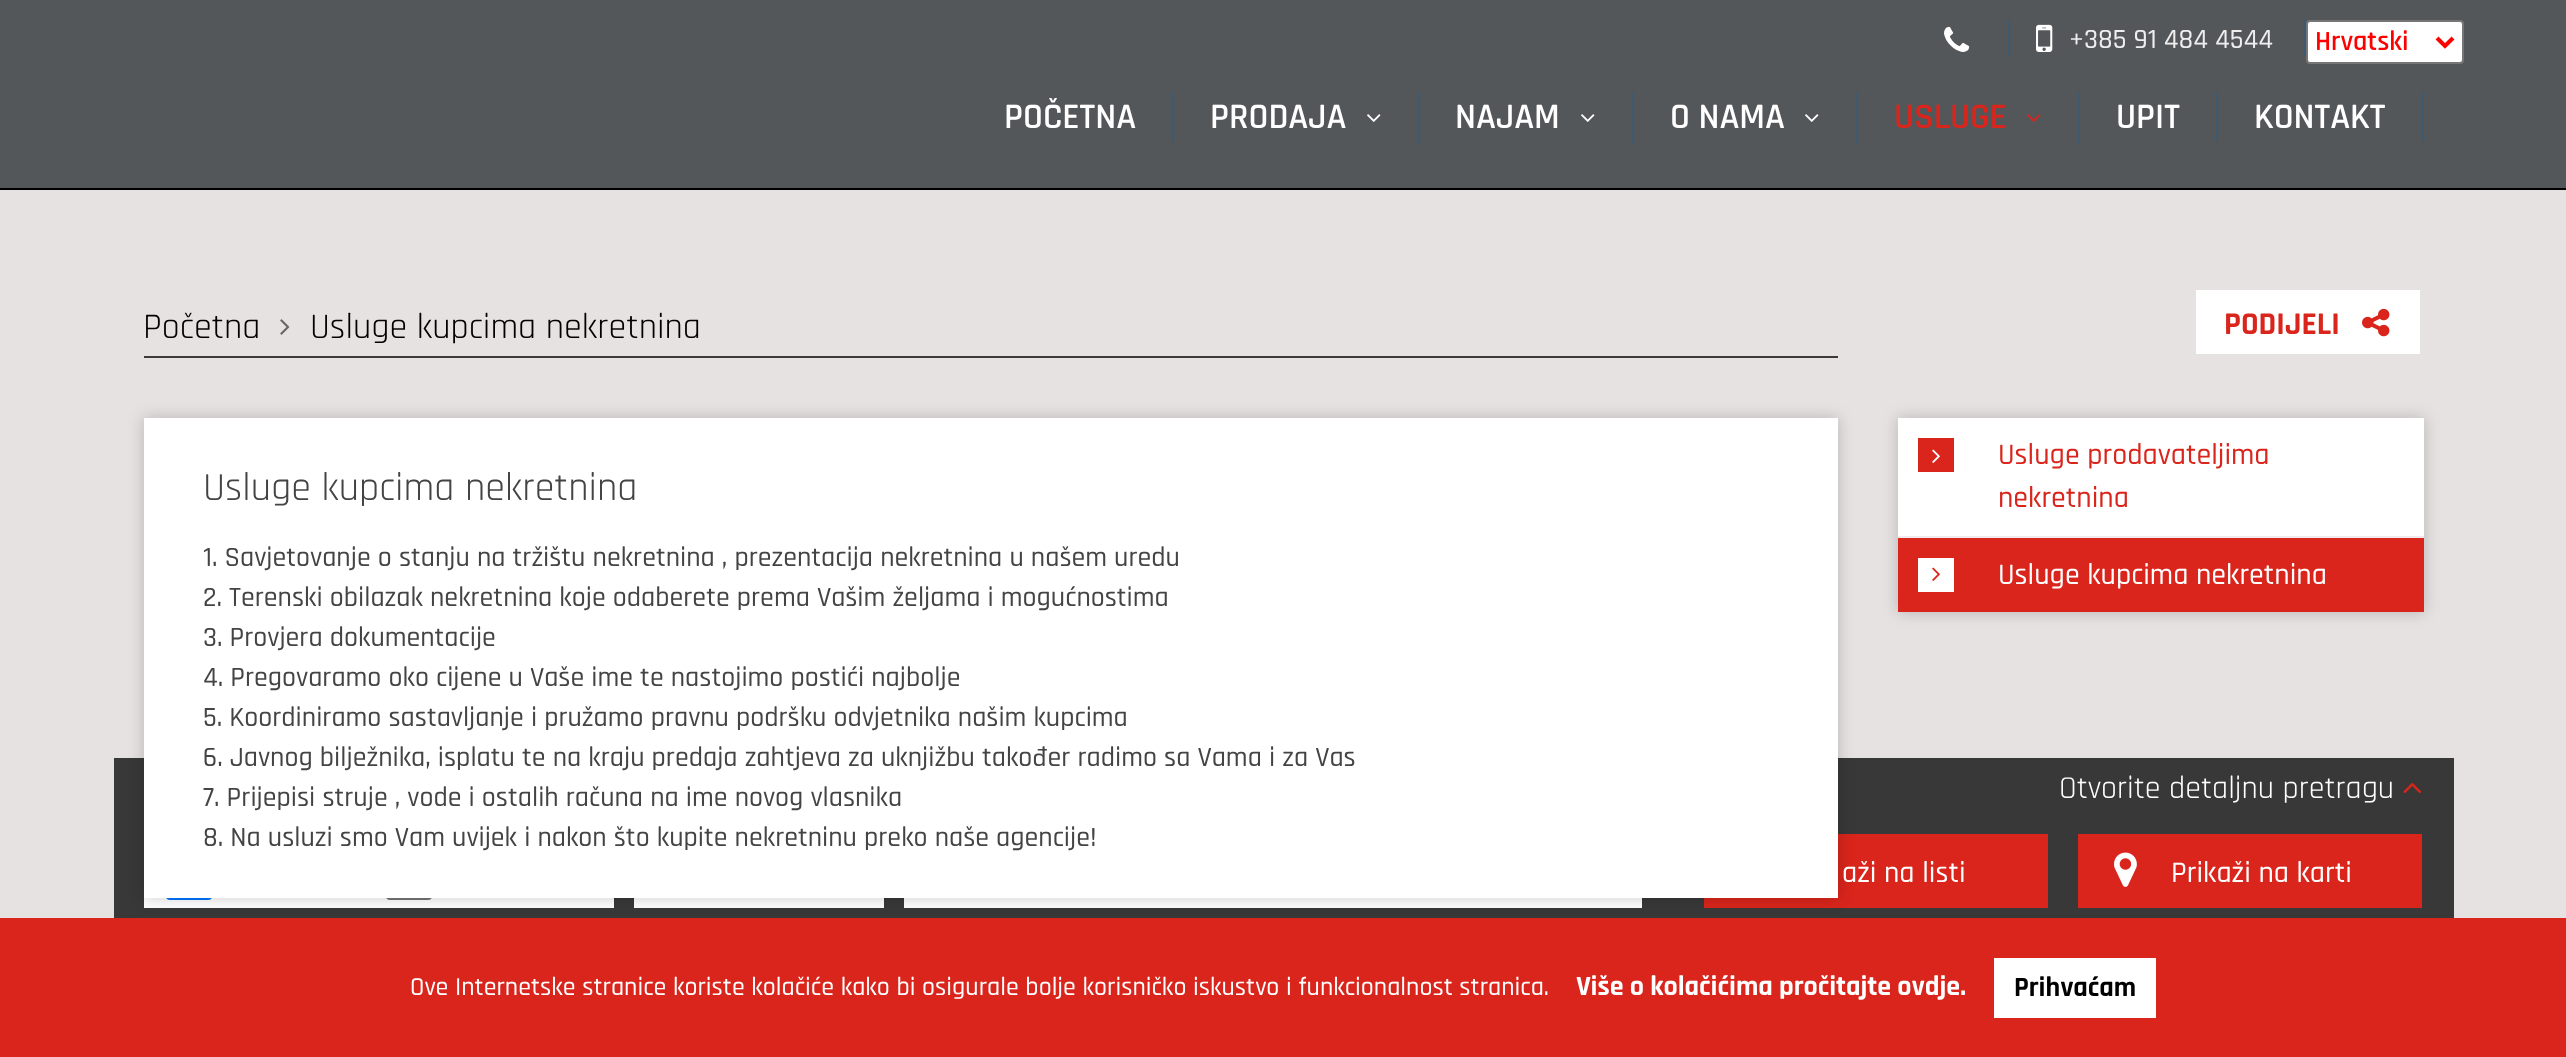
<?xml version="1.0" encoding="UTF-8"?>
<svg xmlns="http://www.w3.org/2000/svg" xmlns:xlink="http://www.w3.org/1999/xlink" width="2566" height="1057">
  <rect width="100%" height="100%" fill="#e5e2e1" />
  <rect width="2566" height="188" fill="#54575a" />
  <rect y="188" width="2566" height="2" fill="#000000" />
  <rect x="2008" y="20" width="2" height="36" fill="#3d5a71" />
  <image x="1944" y="26" width="26" height="26" xlink:href="image1.png" />
  <rect x="2304" y="20" width="2" height="36" fill="#3d5a71" />
  <image x="2036" y="24" width="17" height="28" xlink:href="image2.png" />
  <rect x="2307" y="21" width="156" height="42" rx="3" fill="#ffffff" stroke="#767676" stroke-width="2" />
  <path d="M 2437 38 l 8 8 l 8 -8" fill="none" stroke="#ff0000" stroke-width="4" />
  <rect x="1172" y="92" width="2" height="50" fill="#3d5a71" />
  <rect x="1418" y="92" width="2" height="52" fill="#3d5a71" />
  <image x="1367" y="114" width="14" height="8" xlink:href="image3.png" />
  <rect x="1632" y="92" width="2" height="52" fill="#3d5a71" />
  <image x="1581" y="114" width="14" height="8" xlink:href="image3.png" />
  <rect x="1856" y="92" width="2" height="52" fill="#3d5a71" />
  <image x="1805" y="114" width="14" height="8" xlink:href="image3.png" />
  <rect x="2078" y="92" width="2" height="52" fill="#3d5a71" />
  <image x="2027" y="114" width="14" height="8" xlink:href="image4.png" />
  <rect x="2216" y="92" width="2" height="50" fill="#3d5a71" />
  <rect x="2422" y="92" width="2" height="50" fill="#3d5a71" />
  <rect x="144" y="356" width="1694" height="2" fill="#3e3939" />
  <image x="280" y="319" width="10" height="16" xlink:href="image5.png" />
  <rect x="2196" y="290" width="224" height="64" fill="#ffffff" />
  <image x="2362" y="308" width="28" height="29" xlink:href="image6.png" />
  <rect x="114" y="758" width="2340" height="160" fill="#393838" />
  <rect x="144" y="898" width="470" height="10" fill="#ffffff" />
  <rect x="166" y="854" width="46" height="46" rx="4" fill="#0075ff" />
  <rect x="387" y="855" width="44" height="44" rx="3" fill="none" stroke="#767676" stroke-width="2" />
  <rect x="634" y="898" width="250" height="10" fill="#ffffff" />
  <rect x="904" y="898" width="738" height="10" fill="#ffffff" />
  <rect x="1704" y="834" width="344" height="74" fill="#d9251c" />
  <rect x="144" y="418" width="1694" height="480" fill="#000000" fill-opacity="0.2" filter="blur(8px)" />
  <rect x="144" y="418" width="1694" height="480" fill="#ffffff" />
  <rect x="1898" y="418" width="526" height="194" fill="#000000" fill-opacity="0.2" filter="blur(8px)" />
  <rect x="1898" y="536" width="526" height="2" fill="#f0ebee" />
  <rect x="1898" y="418" width="526" height="118" fill="#ffffff" />
  <rect x="1918" y="438" width="36" height="34" fill="#d9251c" />
  <image x="1932" y="449" width="8" height="14" xlink:href="image7.png" />
  <rect x="1898" y="538" width="526" height="74" fill="#d9251c" />
  <rect x="1918" y="558" width="36" height="34" fill="#ffffff" />
  <image x="1932" y="567" width="8" height="14" xlink:href="image8.png" />
  <image x="2403" y="782" width="19" height="12" xlink:href="image9.png" />
  <rect x="2078" y="834" width="344" height="74" fill="#d9251c" />
  <image x="2114" y="852" width="23" height="35" xlink:href="image10.png" />
  <rect y="918" width="2566" height="139" fill="#d9251c" />
  <rect x="1994" y="958" width="162" height="60" fill="#ffffff" />
  <text x="2069" y="48" style="font-family: Rajdhani; font-size: 28px; font-weight: 500; fill: #eeeeee">+385 91 484 4544</text>
  <text x="2315" y="50" style="font-family: Rajdhani; font-size: 28px; font-weight: 600; fill: #ff0000">Hrvatski</text>
  <text x="1004" y="128" style="font-family: Rajdhani; font-size: 36px; font-weight: 600; fill: #ffffff">POČETNA</text>
  <text x="1210" y="128" style="font-family: Rajdhani; font-size: 36px; font-weight: 600; fill: #ffffff">PRODAJA</text>
  <text x="1455" y="128" style="font-family: Rajdhani; font-size: 36px; font-weight: 600; fill: #ffffff">NAJAM</text>
  <text x="1670" y="128" style="font-family: Rajdhani; font-size: 36px; font-weight: 600; fill: #ffffff">O NAMA</text>
  <text x="1894" y="128" style="font-family: Rajdhani; font-size: 36px; font-weight: 600; fill: #d9251c">USLUGE</text>
  <text x="2116" y="128" style="font-family: Rajdhani; font-size: 36px; font-weight: 600; fill: #ffffff">UPIT</text>
  <text x="2254" y="128" style="font-family: Rajdhani; font-size: 36px; font-weight: 600; fill: #ffffff">KONTAKT</text>
  <text x="143" y="338" style="font-family: Rajdhani; font-size: 36px; fill: #000000">Početna</text>
  <text x="310" y="338" style="font-family: Rajdhani; font-size: 36px; fill: #000000">Usluge kupcima nekretnina</text>
  <text x="2224" y="334" style="font-family: Rajdhani; font-size: 32px; font-weight: bold; fill: #d9251c">PODIJELI</text>
  <text x="203" y="500" style="font-family: Rajdhani; font-size: 40px; fill: #444444">Usluge kupcima nekretnina</text>
  <text x="203" y="566" style="font-family: Rajdhani; font-size: 28px; font-weight: 500; fill: #444444">1. Savjetovanje o stanju na tržištu nekretnina , prezentacija nekretnina u našem uredu</text>
  <text x="203" y="606" style="font-family: Rajdhani; font-size: 28px; font-weight: 500; fill: #444444">2. Terenski obilazak nekretnina koje odaberete prema Vašim željama i mogućnostima</text>
  <text x="203" y="646" style="font-family: Rajdhani; font-size: 28px; font-weight: 500; fill: #444444">3. Provjera dokumentacije</text>
  <text x="203" y="686" style="font-family: Rajdhani; font-size: 28px; font-weight: 500; fill: #444444">4. Pregovaramo oko cijene u Vaše ime te nastojimo postići najbolje</text>
  <text x="203" y="726" style="font-family: Rajdhani; font-size: 28px; font-weight: 500; fill: #444444">5. Koordiniramo sastavljanje i pružamo pravnu podršku odvjetnika našim kupcima</text>
  <text x="203" y="766" style="font-family: Rajdhani; font-size: 28px; font-weight: 500; fill: #444444">6. Javnog bilježnika, isplatu te na kraju predaja zahtjeva za uknjižbu također radimo sa Vama i za Vas</text>
  <text x="203" y="806" style="font-family: Rajdhani; font-size: 28px; font-weight: 500; fill: #444444">7. Prijepisi struje , vode i ostalih računa na ime novog vlasnika</text>
  <text x="203" y="846" style="font-family: Rajdhani; font-size: 28px; font-weight: 500; fill: #444444">8. Na usluzi smo Vam uvijek i nakon što kupite nekretninu preko naše agencije!</text>
  <text x="1998" y="464" style="font-family: Rajdhani; font-size: 30px; font-weight: 500; fill: #d9251c">Usluge prodavateljima</text>
  <text x="1998" y="507" style="font-family: Rajdhani; font-size: 30px; font-weight: 500; fill: #d9251c">nekretnina</text>
  <text x="1998" y="584" style="font-family: Rajdhani; font-size: 30px; font-weight: 500; fill: #ffffff">Usluge kupcima nekretnina</text>
  <text x="2059" y="798" style="font-family: Rajdhani; font-size: 32px; fill: #ffffff">Otvorite detaljnu pretragu</text>
  <text x="1842" y="882" style="font-family: Rajdhani; font-size: 30px; font-weight: 500; fill: #ffffff">aži na listi</text>
  <text x="2171" y="882" style="font-family: Rajdhani; font-size: 30px; font-weight: 500; fill: #ffffff">Prikaži na karti</text>
  <text x="410" y="995" style="font-family: Rajdhani; font-size: 26px; font-weight: 500; fill: #ffffff">Ove Internetske stranice koriste kolačiće kako bi osigurale bolje korisničko iskustvo i funkcionalnost stranica.</text>
  <text x="1576" y="995" style="font-family: Rajdhani; font-size: 28px; font-weight: bold; fill: #ffffff">Više o kolačićima pročitajte ovdje.</text>
  <text x="2014" y="996" style="font-family: Rajdhani; font-size: 28px; font-weight: bold; fill: #000000">Prihvaćam</text>
</svg>
